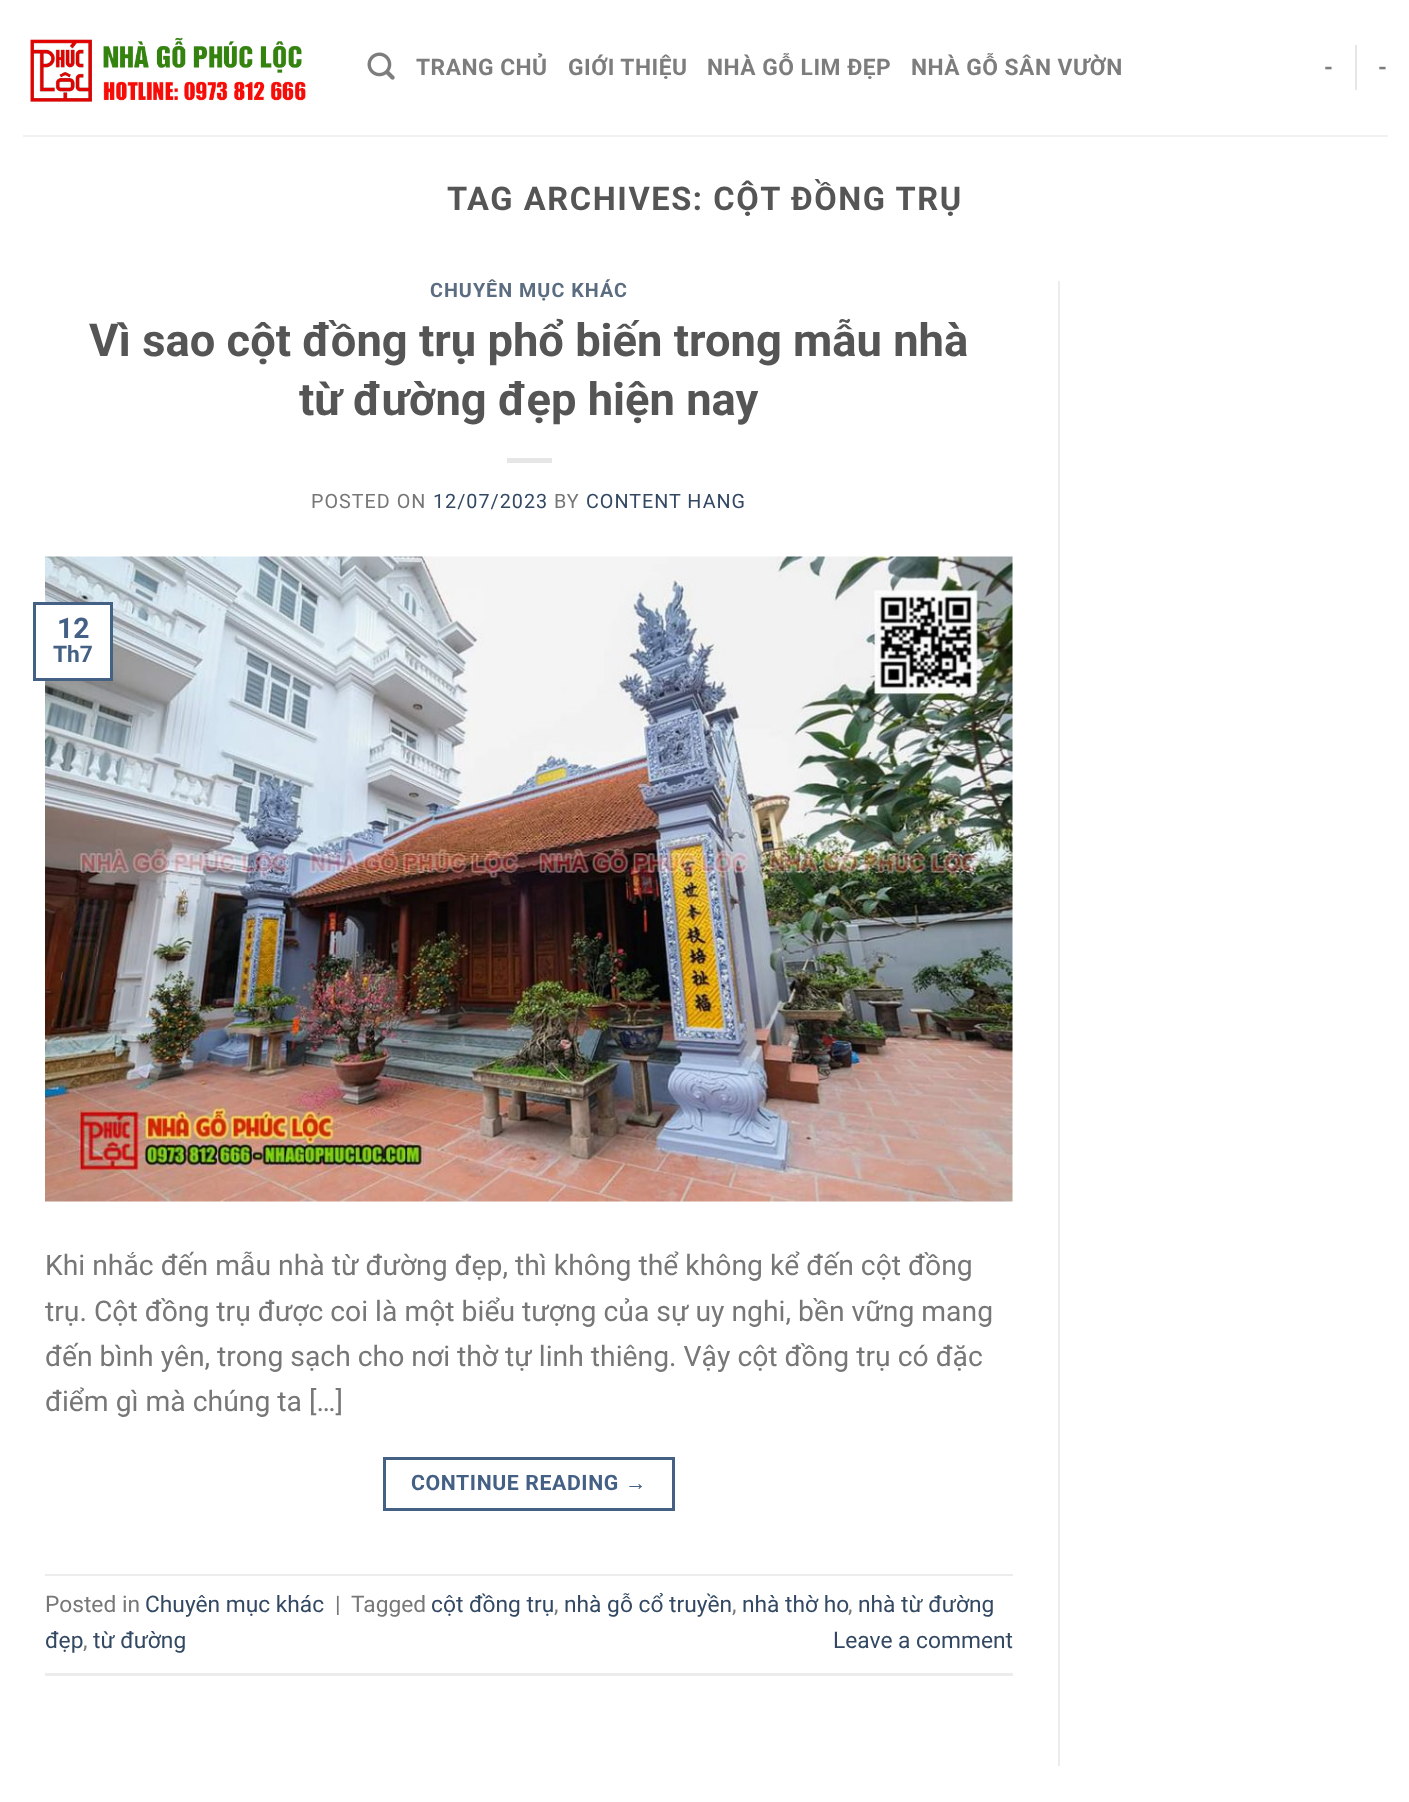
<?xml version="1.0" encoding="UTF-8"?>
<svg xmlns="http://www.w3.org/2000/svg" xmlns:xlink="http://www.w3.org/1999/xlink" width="1409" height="1802">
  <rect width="100%" height="100%" fill="#ffffff" />
  <image x="30" y="37" width="276" height="65" xlink:href="image1.png" />
  <image x="367" y="52" width="28" height="28" xlink:href="image2.png" />
  <rect x="1355" y="45" width="2" height="45" fill="#e6e6e6" />
  <rect x="23" y="135" width="1365" height="2" fill="#f1f1f1" />
  <rect x="507" y="458" width="45" height="5" fill="#e6e6e6" />
  <image x="45" y="556" width="968" height="646" xlink:href="image3.png" />
  <rect x="45" y="605" width="65" height="73" fill="#ffffff" />
  <rect x="34.5" y="603.5" width="77" height="76" fill="none" stroke="#446084" stroke-width="3" />
  <rect x="384.5" y="1458.5" width="289" height="51" fill="none" stroke="#446084" stroke-width="3" />
  <rect x="45" y="1574" width="968" height="2" fill="#ececec" />
  <rect x="45" y="1673" width="968" height="3" fill="#ececec" />
  <rect x="1058" y="281" width="2" height="1485" fill="#ececec" />
  <text x="416" y="75" style="font-family: Roboto; font-size: 22.75px; font-weight: bold; letter-spacing: 0.5px; fill: #7d7d7d">TRANG CHỦ</text>
  <text x="568" y="75" style="font-family: Roboto; font-size: 22.75px; font-weight: bold; letter-spacing: 0.5px; fill: #7d7d7d">GIỚI THIỆU</text>
  <text x="707" y="75" style="font-family: Roboto; font-size: 22.75px; font-weight: bold; letter-spacing: 0.5px; fill: #7d7d7d">NHÀ GỖ LIM ĐẸP</text>
  <text x="911" y="75" style="font-family: Roboto; font-size: 22.75px; font-weight: bold; letter-spacing: 0.5px; fill: #7d7d7d">NHÀ GỖ SÂN VƯỜN</text>
  <text x="1324" y="75" style="font-family: Roboto; font-size: 22.75px; font-weight: bold; letter-spacing: 0.5px; fill: #7d7d7d">-</text>
  <text x="1378" y="75" style="font-family: Roboto; font-size: 22.75px; font-weight: bold; letter-spacing: 0.5px; fill: #7d7d7d">-</text>
  <text x="447" y="210" style="font-family: Roboto; font-size: 32.6px; font-weight: bold; letter-spacing: 1.6px; fill: #555555">TAG ARCHIVES: CỘT ĐỒNG TRỤ</text>
  <text x="430" y="297" style="font-family: Roboto; font-size: 19.75px; font-weight: bold; letter-spacing: 1px; fill: #5c6d81">CHUYÊN MỤC KHÁC</text>
  <text x="89" y="356" style="font-family: Roboto; font-size: 45.3px; font-weight: bold; fill: #555555">Vì sao cột đồng trụ phổ biến trong mẫu nhà</text>
  <text x="299" y="415" style="font-family: Roboto; font-size: 45.3px; font-weight: bold; fill: #555555">từ đường đẹp hiện nay</text>
  <text x="311" y="508" style="font-family: Roboto; font-size: 19.75px; letter-spacing: 1px; fill: #777777">POSTED ON</text>
  <text x="433" y="508" style="font-family: Roboto; font-size: 19.75px; letter-spacing: 1px; fill: #334862">12/07/2023</text>
  <text x="554" y="508" style="font-family: Roboto; font-size: 19.75px; letter-spacing: 1px; fill: #777777">BY</text>
  <text x="586" y="508" style="font-family: Roboto; font-size: 19.75px; letter-spacing: 1px; fill: #334862">CONTENT HANG</text>
  <text x="57" y="638" style="font-family: Roboto; font-size: 28.3px; font-weight: bold; fill: #446084">12</text>
  <text x="53" y="662" style="font-family: Roboto; font-size: 22.75px; font-weight: bold; fill: #446084">Th7</text>
  <text x="45" y="1275" style="font-family: Roboto; font-size: 28.3px; fill: #777777">Khi nhắc đến mẫu nhà từ đường đẹp, thì không thể không kể đến cột đồng</text>
  <text x="45" y="1321" style="font-family: Roboto; font-size: 28.3px; fill: #777777">trụ. Cột đồng trụ được coi là một biểu tượng của sự uy nghi, bền vững mang</text>
  <text x="45" y="1366" style="font-family: Roboto; font-size: 28.3px; fill: #777777">đến bình yên, trong sạch cho nơi thờ tự linh thiêng. Vậy cột đồng trụ có đặc</text>
  <text x="45" y="1411" style="font-family: Roboto; font-size: 28.3px; fill: #777777">điểm gì mà chúng ta […]</text>
  <text x="411" y="1490" style="font-family: Roboto; font-size: 21.25px; font-weight: bold; letter-spacing: 0.6px; fill: #446084">CONTINUE READING</text>
  <text x="625" y="1490" style="font-family: Liberation Sans; font-size: 21.25px; font-weight: bold; letter-spacing: 0.6px; fill: #446084">→</text>
  <text x="45" y="1612" style="font-family: Roboto; font-size: 22.75px; fill: #777777">Posted in</text>
  <text x="145" y="1612" style="font-family: Roboto; font-size: 22.75px; fill: #334862">Chuyên mục khác</text>
  <text x="335" y="1612" style="font-family: Roboto; font-size: 22.75px; fill: #777777">|</text>
  <text x="351" y="1612" style="font-family: Roboto; font-size: 22.75px; fill: #777777">Tagged</text>
  <text x="431" y="1612" style="font-family: Roboto; font-size: 22.75px; fill: #334862">cột đồng trụ</text>
  <text x="554" y="1612" style="font-family: Roboto; font-size: 22.75px; fill: #777777">,</text>
  <text x="564" y="1612" style="font-family: Roboto; font-size: 22.75px; fill: #334862">nhà gỗ cổ truyền</text>
  <text x="732" y="1612" style="font-family: Roboto; font-size: 22.75px; fill: #777777">,</text>
  <text x="742" y="1612" style="font-family: Roboto; font-size: 22.75px; fill: #334862">nhà thờ ho</text>
  <text x="848" y="1612" style="font-family: Roboto; font-size: 22.75px; fill: #777777">,</text>
  <text x="858" y="1612" style="font-family: Roboto; font-size: 22.75px; fill: #334862">nhà từ đường</text>
  <text x="45" y="1648" style="font-family: Roboto; font-size: 22.75px; fill: #334862">đẹp</text>
  <text x="83" y="1648" style="font-family: Roboto; font-size: 22.75px; fill: #777777">,</text>
  <text x="93" y="1648" style="font-family: Roboto; font-size: 22.75px; fill: #334862">từ đường</text>
  <text x="833" y="1648" style="font-family: Roboto; font-size: 22.75px; fill: #334862">Leave a comment</text>
</svg>
